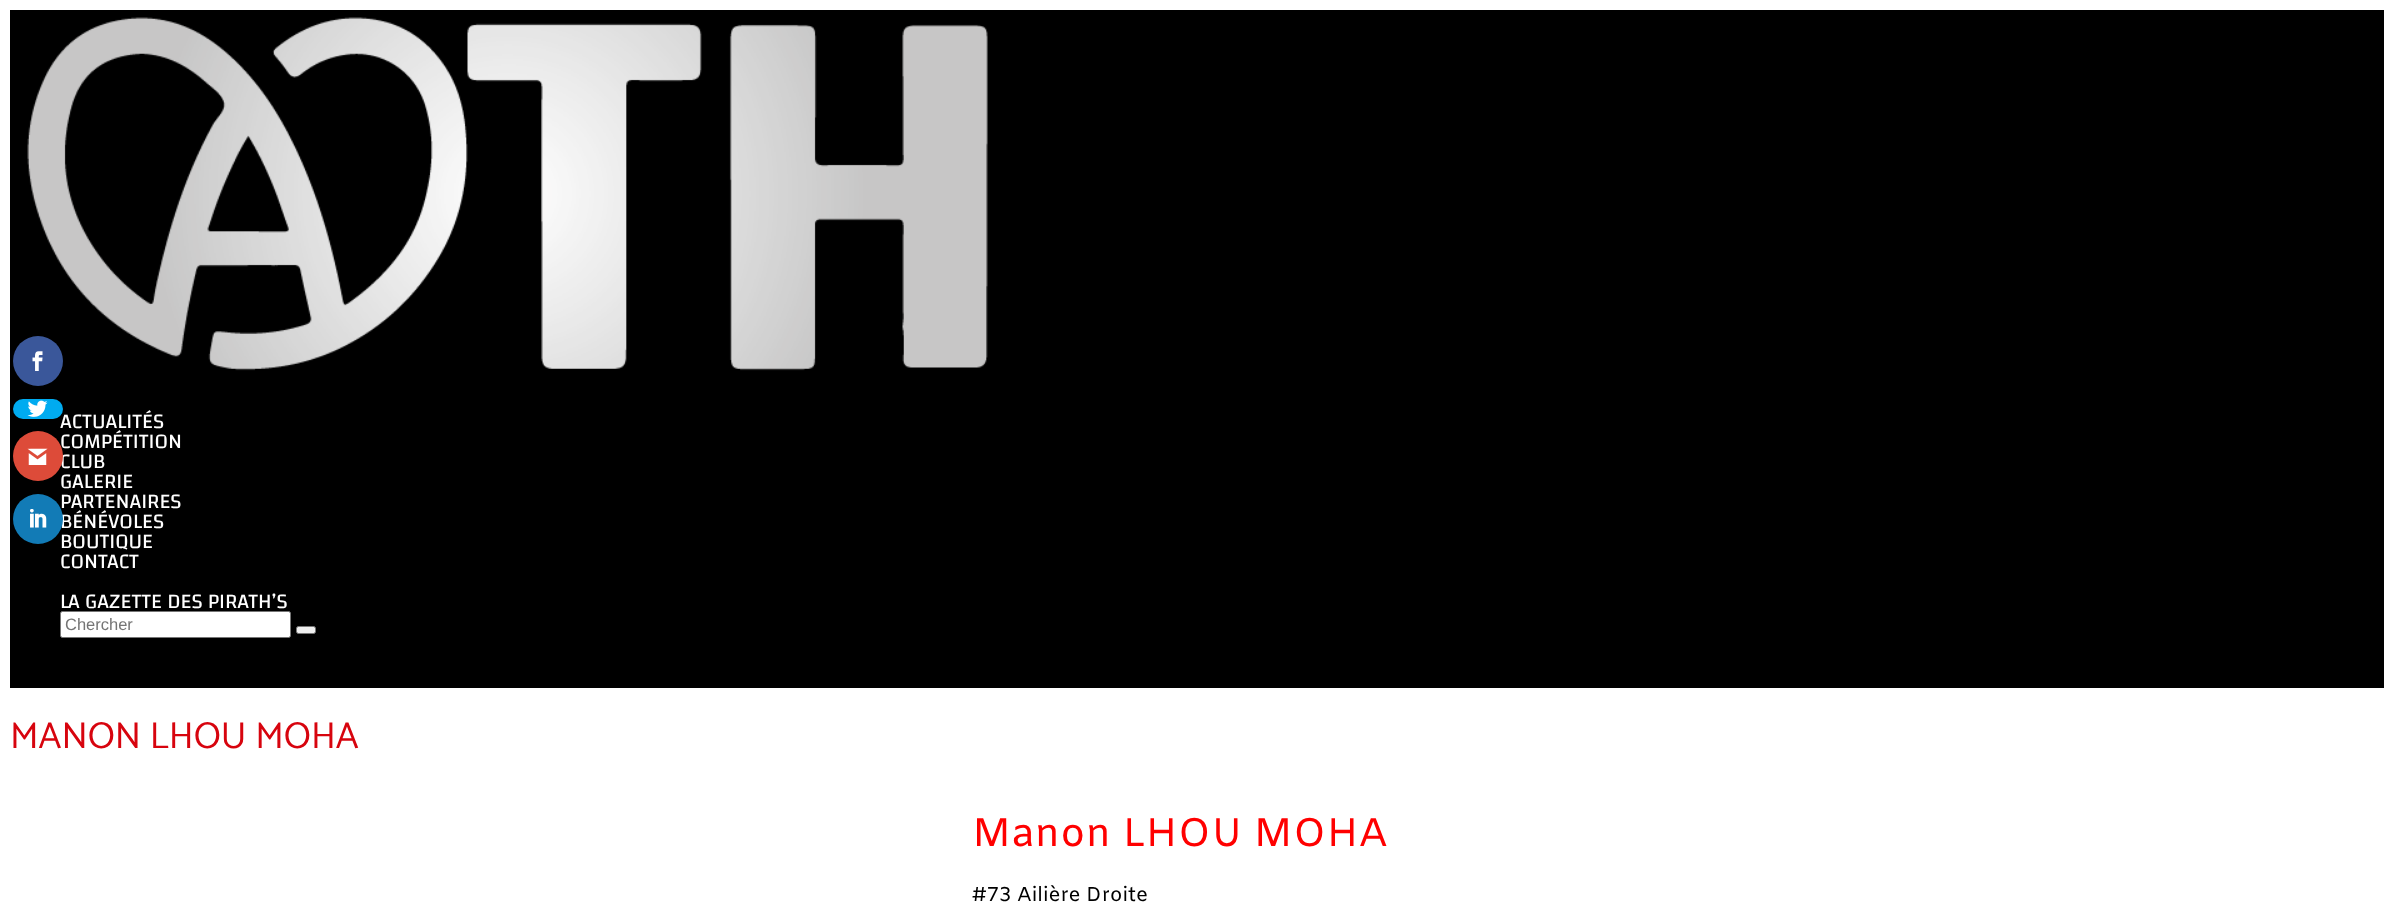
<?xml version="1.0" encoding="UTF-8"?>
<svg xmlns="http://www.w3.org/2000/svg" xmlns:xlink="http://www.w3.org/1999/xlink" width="2393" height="921">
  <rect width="100%" height="100%" fill="#ffffff" />
  <rect x="10" y="10" width="2374" height="678" fill="#000000" />
  <image x="27" y="17" width="961" height="354" xlink:href="image5.png" />
  <circle cx="38" cy="361" r="25" fill="#3a579a" />
  <image x="32" y="351" width="11" height="20" xlink:href="image1.png" />
  <rect x="60.5" y="611.5" width="230" height="26" rx="2" fill="#ffffff" stroke="#767676" />
  <rect x="296.5" y="626.5" width="19" height="7" rx="2" fill="#efefef" stroke="#767676" />
  <text x="60" y="428" style="font-family: Changa; font-size: 21.25px; fill: #ffffff">ACTUALITÉS</text>
  <rect x="13" y="399" width="50" height="20" rx="10" fill="#00abf0" />
  <image x="27" y="400" width="21" height="17" xlink:href="image2.png" />
  <text x="60" y="448" style="font-family: Changa; font-size: 21.25px; fill: #ffffff">COMPÉTITION</text>
  <text x="60" y="468" style="font-family: Changa; font-size: 21.25px; fill: #ffffff">CLUB</text>
  <text x="60" y="488" style="font-family: Changa; font-size: 21.25px; fill: #ffffff">GALERIE</text>
  <circle cx="38" cy="456" r="25" fill="#dd4b39" />
  <image x="27" y="448" width="21" height="17" xlink:href="image3.png" />
  <text x="60" y="508" style="font-family: Changa; font-size: 21.25px; fill: #ffffff">PARTENAIRES</text>
  <text x="60" y="528" style="font-family: Changa; font-size: 21.25px; fill: #ffffff">BÉNÉVOLES</text>
  <text x="60" y="548" style="font-family: Changa; font-size: 21.25px; fill: #ffffff">BOUTIQUE</text>
  <circle cx="38" cy="519" r="25" fill="#127bb6" />
  <image x="30" y="509" width="17" height="19" xlink:href="image4.png" />
  <text x="60" y="568" style="font-family: Changa; font-size: 21.25px; fill: #ffffff">CONTACT</text>
  <text x="60" y="608" style="font-family: Changa; font-size: 21.25px; fill: #ffffff">LA GAZETTE DES PIRATH’S</text>
  <text x="65" y="630" style="font-family: Liberation Sans; font-size: 16.5px; fill: #757575">Chercher</text>
  <text x="10" y="748" style="font-family: Catamaran; font-size: 37.5px; font-weight: 100; fill: #d7040e">MANON LHOU MOHA</text>
  <text x="972" y="846" style="font-family: Amiko; font-size: 40px; fill: #ff0000">Manon LHOU MOHA</text>
  <text x="972" y="901" style="font-family: Amiko; font-size: 20px; fill: #000000">#73 Ailière Droite</text>
</svg>
